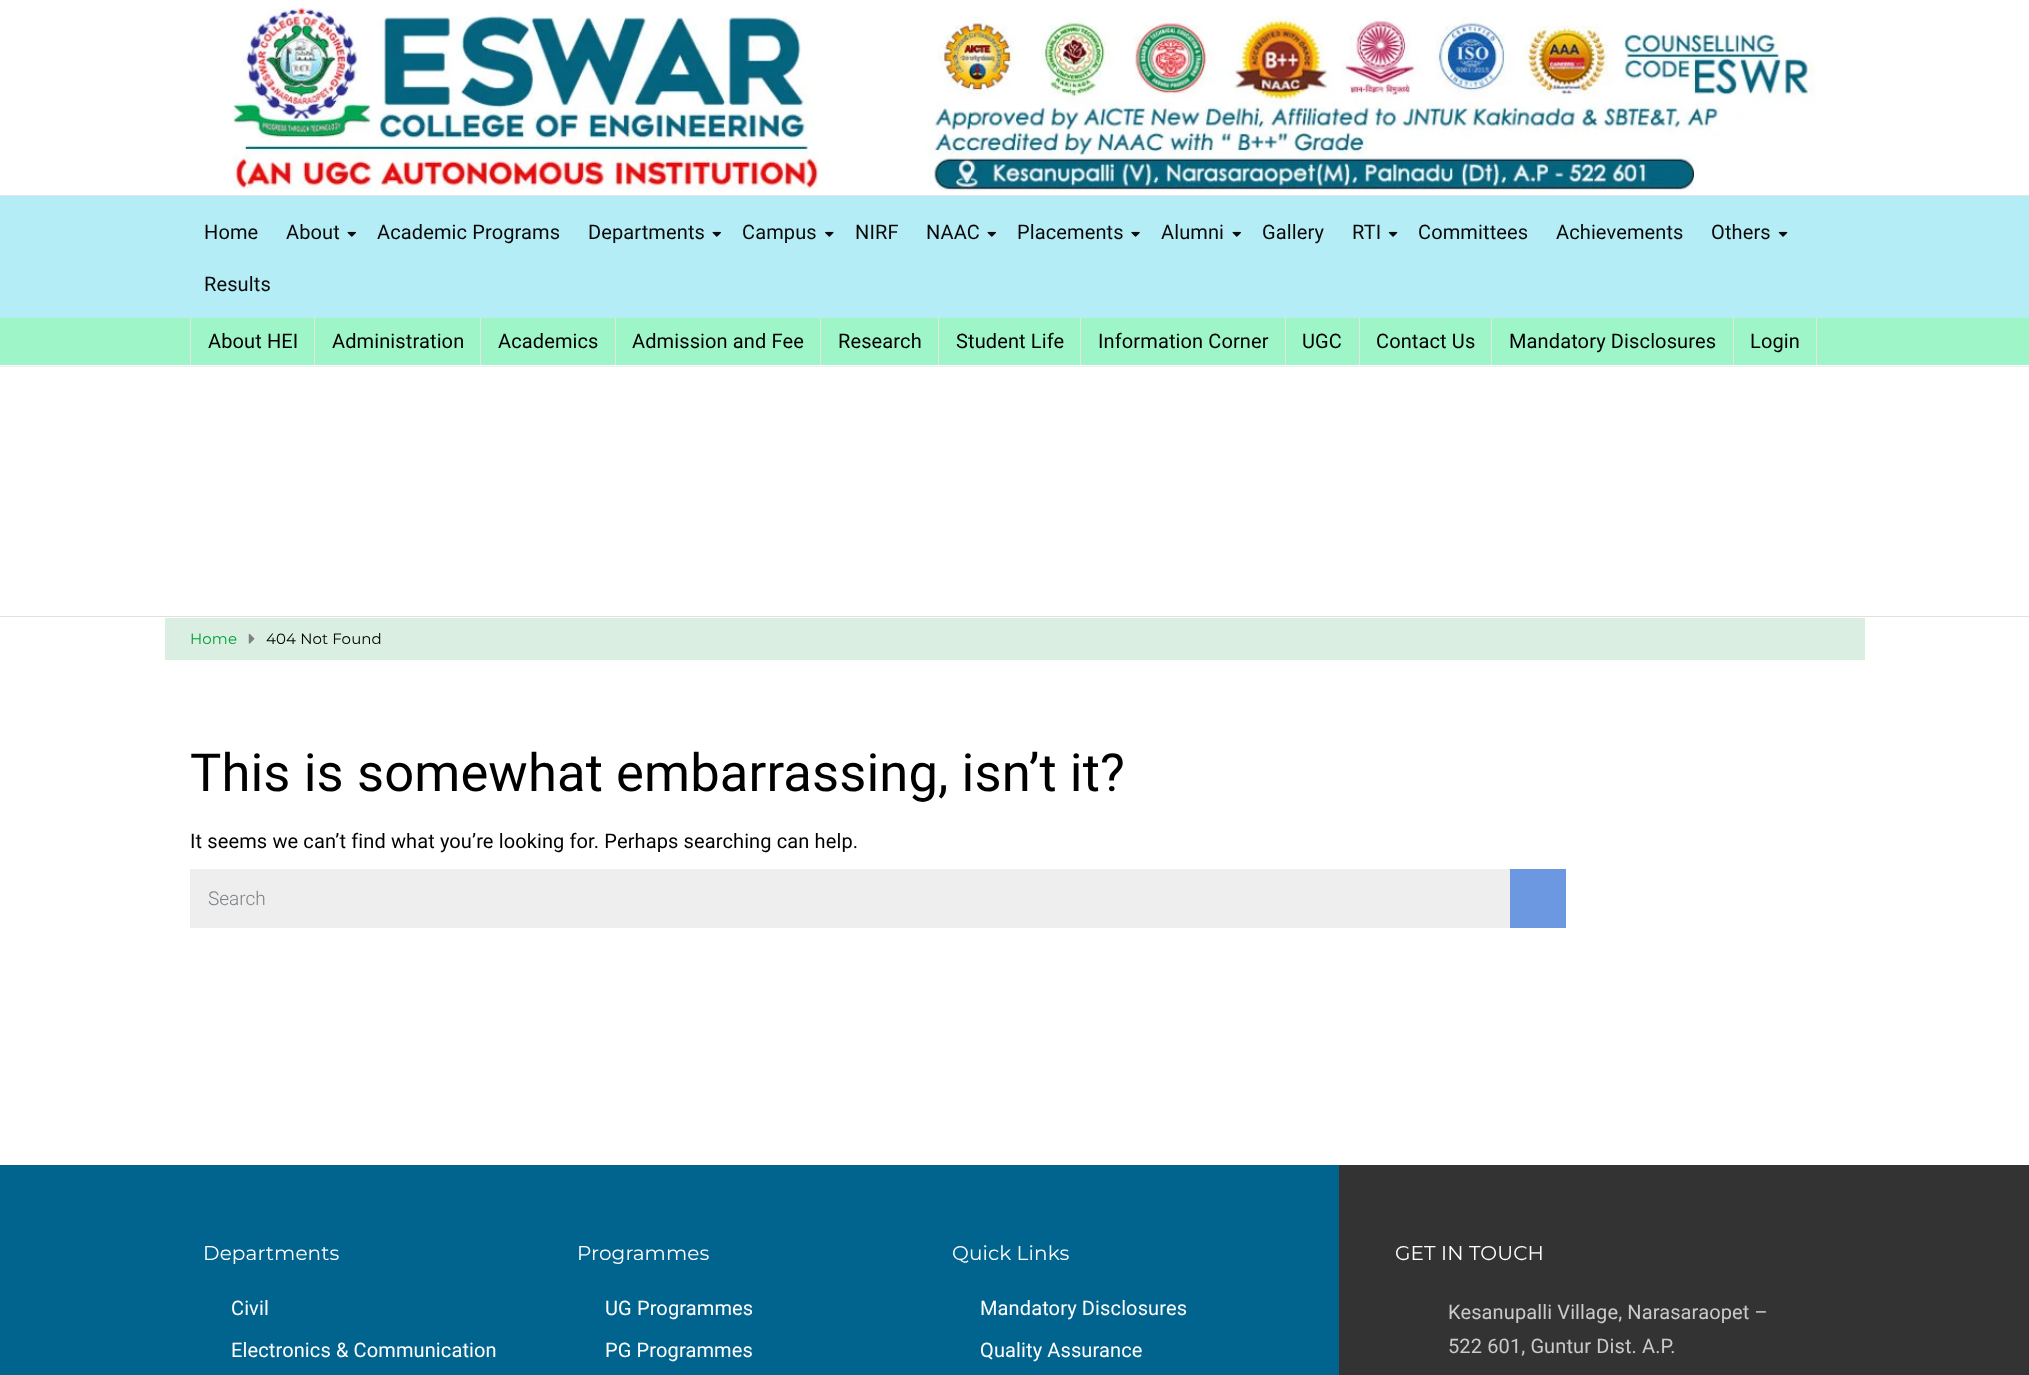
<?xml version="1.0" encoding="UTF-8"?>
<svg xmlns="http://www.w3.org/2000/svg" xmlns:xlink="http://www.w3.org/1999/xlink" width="2029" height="1375">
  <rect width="100%" height="100%" fill="#ffffff" />
  <rect y="366" width="2029" height="1" fill="#ebebeb" />
  <rect y="195" width="2029" height="1" fill="#e5e5e5" />
  <image x="232" y="7" width="1583" height="184" xlink:href="image1.png" />
  <rect y="196" width="2029" height="122" fill="#b4edf5" />
  <image x="347" y="231" width="9" height="6" xlink:href="image2.png" />
  <image x="712" y="231" width="9" height="6" xlink:href="image2.png" />
  <image x="825" y="231" width="9" height="6" xlink:href="image3.png" />
  <image x="987" y="231" width="9" height="6" xlink:href="image2.png" />
  <image x="1131" y="231" width="9" height="6" xlink:href="image4.png" />
  <image x="1232" y="231" width="9" height="6" xlink:href="image2.png" />
  <image x="1388" y="231" width="10" height="6" xlink:href="image5.png" />
  <image x="1778" y="231" width="10" height="6" xlink:href="image5.png" />
  <rect y="318" width="2029" height="47" fill="#9ef5c8" />
  <rect x="314" y="318" width="1" height="47" fill="#e5e5e5" />
  <rect x="190" y="318" width="1" height="47" fill="#e5e5e5" />
  <rect x="480" y="318" width="1" height="47" fill="#e5e5e5" />
  <rect x="615" y="318" width="1" height="47" fill="#e5e5e5" />
  <rect x="820" y="318" width="1" height="47" fill="#e5e5e5" />
  <rect x="938" y="318" width="1" height="47" fill="#e5e5e5" />
  <rect x="1080" y="318" width="1" height="47" fill="#e5e5e5" />
  <rect x="1285" y="318" width="1" height="47" fill="#e5e5e5" />
  <rect x="1359" y="318" width="1" height="47" fill="#e5e5e5" />
  <rect x="1491" y="318" width="1" height="47" fill="#e5e5e5" />
  <rect x="1733" y="318" width="1" height="47" fill="#e5e5e5" />
  <rect x="1816" y="318" width="1" height="47" fill="#e5e5e5" />
  <rect y="616" width="2029" height="1" fill="#e1e1e1" />
  <rect x="165" y="618" width="1700" height="42" fill="#daefe2" />
  <image x="248" y="633" width="7" height="11" xlink:href="image6.png" />
  <rect x="190" y="869" width="1320" height="59" fill="#eeeeee" />
  <rect x="1510" y="869" width="56" height="59" fill="#6c98e1" />
  <rect y="1165" width="1339" height="210" fill="#01648f" />
  <rect x="1339" y="1165" width="690" height="210" fill="#333333" />
  <text x="204" y="239" style="font-family: Roboto; font-size: 20px; letter-spacing: 0.12px; fill: #090909">Home</text>
  <text x="286" y="239" style="font-family: Roboto; font-size: 20px; letter-spacing: 0.12px; fill: #090909">About</text>
  <text x="377" y="239" style="font-family: Roboto; font-size: 20px; letter-spacing: 0.12px; fill: #090909">Academic Programs</text>
  <text x="588" y="239" style="font-family: Roboto; font-size: 20px; letter-spacing: 0.12px; fill: #090909">Departments</text>
  <text x="742" y="239" style="font-family: Roboto; font-size: 20px; letter-spacing: 0.12px; fill: #090909">Campus</text>
  <text x="855" y="239" style="font-family: Roboto; font-size: 20px; letter-spacing: 0.12px; fill: #090909">NIRF</text>
  <text x="926" y="239" style="font-family: Roboto; font-size: 20px; letter-spacing: 0.12px; fill: #090909">NAAC</text>
  <text x="1017" y="239" style="font-family: Roboto; font-size: 20px; letter-spacing: 0.12px; fill: #090909">Placements</text>
  <text x="1161" y="239" style="font-family: Roboto; font-size: 20px; letter-spacing: 0.12px; fill: #090909">Alumni</text>
  <text x="1262" y="239" style="font-family: Roboto; font-size: 20px; letter-spacing: 0.12px; fill: #090909">Gallery</text>
  <text x="1352" y="239" style="font-family: Roboto; font-size: 20px; letter-spacing: 0.12px; fill: #090909">RTI</text>
  <text x="1418" y="239" style="font-family: Roboto; font-size: 20px; letter-spacing: 0.12px; fill: #090909">Committees</text>
  <text x="1556" y="239" style="font-family: Roboto; font-size: 20px; letter-spacing: 0.12px; fill: #090909">Achievements</text>
  <text x="1711" y="239" style="font-family: Roboto; font-size: 20px; letter-spacing: 0.12px; fill: #090909">Others</text>
  <text x="204" y="291" style="font-family: Roboto; font-size: 20px; letter-spacing: 0.12px; fill: #090909">Results</text>
  <text x="208" y="348" style="font-family: Roboto; font-size: 20px; letter-spacing: 0.12px; fill: #000000">About HEI</text>
  <text x="332" y="348" style="font-family: Roboto; font-size: 20px; letter-spacing: 0.12px; fill: #000000">Administration</text>
  <text x="498" y="348" style="font-family: Roboto; font-size: 20px; letter-spacing: 0.12px; fill: #000000">Academics</text>
  <text x="632" y="348" style="font-family: Roboto; font-size: 20px; letter-spacing: 0.12px; fill: #000000">Admission and Fee</text>
  <text x="838" y="348" style="font-family: Roboto; font-size: 20px; letter-spacing: 0.12px; fill: #000000">Research</text>
  <text x="956" y="348" style="font-family: Roboto; font-size: 20px; letter-spacing: 0.12px; fill: #000000">Student Life</text>
  <text x="1098" y="348" style="font-family: Roboto; font-size: 20px; letter-spacing: 0.12px; fill: #000000">Information Corner</text>
  <text x="1302" y="348" style="font-family: Roboto; font-size: 20px; letter-spacing: 0.12px; fill: #000000">UGC</text>
  <text x="1376" y="348" style="font-family: Roboto; font-size: 20px; letter-spacing: 0.12px; fill: #000000">Contact Us</text>
  <text x="1509" y="348" style="font-family: Roboto; font-size: 20px; letter-spacing: 0.12px; fill: #000000">Mandatory Disclosures</text>
  <text x="1750" y="348" style="font-family: Roboto; font-size: 20px; letter-spacing: 0.12px; fill: #000000">Login</text>
  <text x="190" y="644" style="font-family: Montserrat; font-size: 15px; letter-spacing: 0.12px; fill: #019e38">Home</text>
  <text x="266" y="644" style="font-family: Montserrat; font-size: 15px; letter-spacing: 0.12px; fill: #000000">404 Not Found</text>
  <text x="190" y="791" style="font-family: Roboto; font-size: 52.5px; letter-spacing: 0.12px; fill: #000000">This is somewhat embarrassing, isn’t it?</text>
  <text x="190" y="848" style="font-family: Roboto; font-size: 20px; letter-spacing: 0.12px; fill: #000000">It seems we can’t find what you’re looking for. Perhaps searching can help.</text>
  <text x="208" y="905" style="font-family: Roboto; font-size: 19px; font-weight: 300; fill: #7b8085">Search</text>
  <text x="203" y="1260" style="font-family: Montserrat; font-size: 20px; letter-spacing: 0.12px; fill: #ffffff">Departments</text>
  <text x="231" y="1315" style="font-family: Roboto; font-size: 20px; letter-spacing: 0.12px; fill: #ffffff">Civil</text>
  <text x="231" y="1357" style="font-family: Roboto; font-size: 20px; letter-spacing: 0.12px; fill: #ffffff">Electronics &amp; Communication</text>
  <text x="577" y="1260" style="font-family: Montserrat; font-size: 20px; letter-spacing: 0.12px; fill: #ffffff">Programmes</text>
  <text x="605" y="1315" style="font-family: Roboto; font-size: 20px; letter-spacing: 0.12px; fill: #ffffff">UG Programmes</text>
  <text x="605" y="1357" style="font-family: Roboto; font-size: 20px; letter-spacing: 0.12px; fill: #ffffff">PG Programmes</text>
  <text x="952" y="1260" style="font-family: Montserrat; font-size: 20px; letter-spacing: 0.12px; fill: #ffffff">Quick Links</text>
  <text x="980" y="1315" style="font-family: Roboto; font-size: 20px; letter-spacing: 0.12px; fill: #ffffff">Mandatory Disclosures</text>
  <text x="980" y="1357" style="font-family: Roboto; font-size: 20px; letter-spacing: 0.12px; fill: #ffffff">Quality Assurance</text>
  <text x="1395" y="1260" style="font-family: Montserrat; font-size: 20px; letter-spacing: 0.12px; fill: #ffffff">GET IN TOUCH</text>
  <text x="1448" y="1319" style="font-family: Roboto; font-size: 20px; letter-spacing: 0.12px; fill: #cacaca">Kesanupalli Village, Narasaraopet –</text>
  <text x="1448" y="1353" style="font-family: Roboto; font-size: 20px; letter-spacing: 0.12px; fill: #cacaca">522 601, Guntur Dist. A.P.</text>
</svg>
